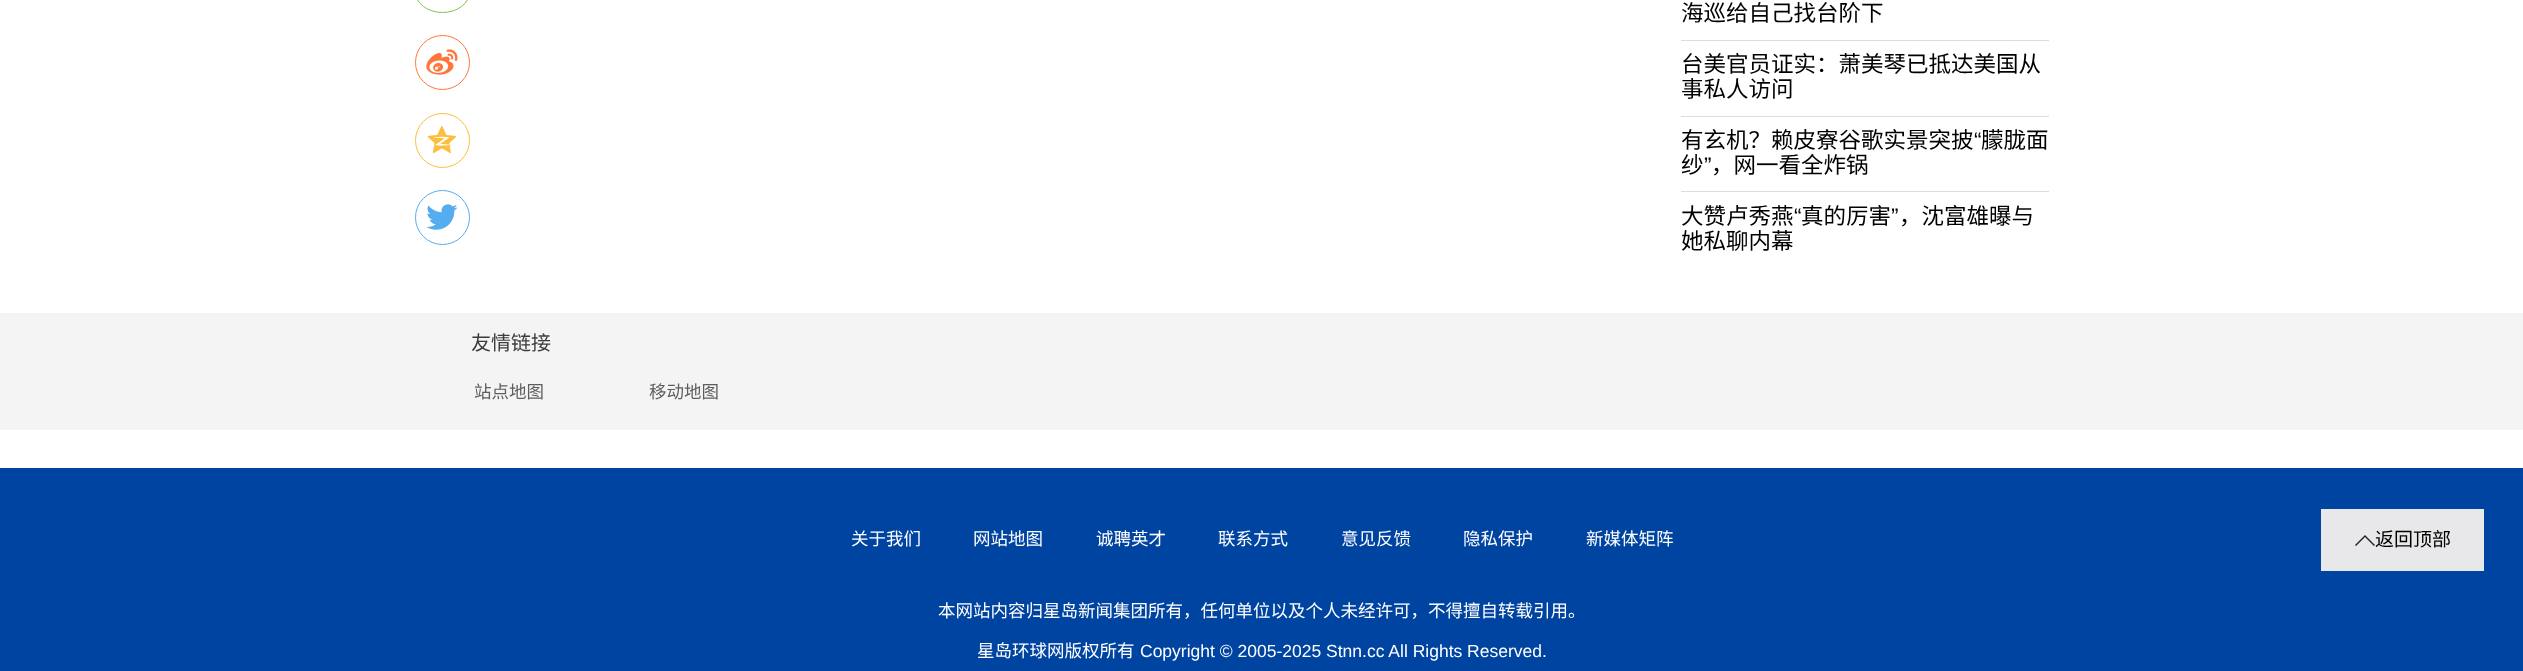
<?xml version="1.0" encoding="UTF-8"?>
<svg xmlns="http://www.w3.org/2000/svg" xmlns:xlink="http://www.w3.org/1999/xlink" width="2523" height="671">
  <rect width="100%" height="100%" fill="#ffffff" />
  <rect x="415.5" y="-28.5" width="54" height="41" rx="27" fill="none" stroke="#7bc549" />
  <circle cx="442.5" cy="62.5" r="27" fill="none" stroke="#ff763b" />
  <image x="426" y="49" width="32" height="26" xlink:href="image1.png" />
  <circle cx="442.5" cy="140.5" r="27" fill="none" stroke="#fdbe3d" />
  <image x="427" y="125" width="30" height="29" xlink:href="image2.png" />
  <circle cx="442.5" cy="217.5" r="27" fill="none" stroke="#55acee" />
  <image x="426" y="204" width="32" height="26" xlink:href="image3.png" />
  <rect x="1681" y="40" width="368" height="1" fill="#dddddd" />
  <rect x="1681" y="116" width="368" height="1" fill="#dddddd" />
  <rect x="1681" y="191" width="368" height="1" fill="#dddddd" />
  <rect y="313" width="2523" height="117" fill="#f4f4f4" />
  <rect y="468" width="2523" height="203" fill="#0044a1" />
  <rect x="2321" y="509" width="163" height="62" fill="#e8e8ea" />
  <path d="M 2374 546 l 1 -1 l -10 -10 l -10 10 l 1 1 l 9 -9 z" fill="#232323" />
  <text x="1681" y="21" style="font-family: Noto Sans CJK SC; font-size: 22.5px; fill: #000000">海巡给自己找台阶下</text>
  <text x="1681" y="72" style="font-family: Noto Sans CJK SC; font-size: 22.5px; fill: #000000">台美官员证实：萧美琴已抵达美国从</text>
  <text x="1681" y="97" style="font-family: Noto Sans CJK SC; font-size: 22.5px; fill: #000000">事私人访问</text>
  <text x="1681" y="148" style="font-family: Noto Sans CJK SC; font-size: 22.5px; fill: #000000">有玄机？赖皮寮谷歌实景突披</text>
  <text x="1974" y="148" style="font-family: Liberation Sans; font-size: 22.5px; fill: #000000">“</text>
  <text x="1981" y="148" style="font-family: Noto Sans CJK SC; font-size: 22.5px; fill: #000000">朦胧面</text>
  <text x="1681" y="173" style="font-family: Noto Sans CJK SC; font-size: 22.5px; fill: #000000">纱</text>
  <text x="1704" y="173" style="font-family: Liberation Sans; font-size: 22.5px; fill: #000000">”</text>
  <text x="1711" y="173" style="font-family: Noto Sans CJK SC; font-size: 22.5px; fill: #000000">，网一看全炸锅</text>
  <text x="1681" y="224" style="font-family: Noto Sans CJK SC; font-size: 22.5px; fill: #000000">大赞卢秀燕</text>
  <text x="1794" y="224" style="font-family: Liberation Sans; font-size: 22.5px; fill: #000000">“</text>
  <text x="1801" y="224" style="font-family: Noto Sans CJK SC; font-size: 22.5px; fill: #000000">真的厉害</text>
  <text x="1891" y="224" style="font-family: Liberation Sans; font-size: 22.5px; fill: #000000">”</text>
  <text x="1899" y="224" style="font-family: Noto Sans CJK SC; font-size: 22.5px; fill: #000000">，沈富雄曝与</text>
  <text x="1681" y="249" style="font-family: Noto Sans CJK SC; font-size: 22.5px; fill: #000000">她私聊内幕</text>
  <text x="471" y="350" style="font-family: Noto Sans CJK SC; font-size: 20px; fill: #3b3b3b">友情链接</text>
  <text x="474" y="398" style="font-family: Noto Sans CJK SC; font-size: 17.5px; fill: #5e5e5e">站点地图</text>
  <text x="649" y="398" style="font-family: Noto Sans CJK SC; font-size: 17.5px; fill: #5e5e5e">移动地图</text>
  <text x="851" y="545" style="font-family: Noto Sans CJK SC; font-size: 17.5px; fill: #ffffff">关于我们</text>
  <text x="973" y="545" style="font-family: Noto Sans CJK SC; font-size: 17.5px; fill: #ffffff">网站地图</text>
  <text x="1096" y="545" style="font-family: Noto Sans CJK SC; font-size: 17.5px; fill: #ffffff">诚聘英才</text>
  <text x="1218" y="545" style="font-family: Noto Sans CJK SC; font-size: 17.5px; fill: #ffffff">联系方式</text>
  <text x="1341" y="545" style="font-family: Noto Sans CJK SC; font-size: 17.5px; fill: #ffffff">意见反馈</text>
  <text x="1463" y="545" style="font-family: Noto Sans CJK SC; font-size: 17.5px; fill: #ffffff">隐私保护</text>
  <text x="1586" y="545" style="font-family: Noto Sans CJK SC; font-size: 17.5px; fill: #ffffff">新媒体矩阵</text>
  <text x="938" y="617" style="font-family: Noto Sans CJK SC; font-size: 17.5px; fill: #ffffff">本网站内容归星岛新闻集团所有，任何单位以及个人未经许可，不得擅自转载引用。</text>
  <text x="977" y="657" style="font-family: Noto Sans CJK SC; font-size: 17.5px; fill: #ffffff">星岛环球网版权所有</text>
  <text x="1140" y="657" style="font-family: Liberation Sans; font-size: 17.5px; fill: #ffffff">Copyright © 2005-2025 Stnn.cc All Rights Reserved.</text>
  <text x="2375" y="546" style="font-family: Noto Sans CJK SC; font-size: 19px; fill: #000000">返回顶部</text>
</svg>
